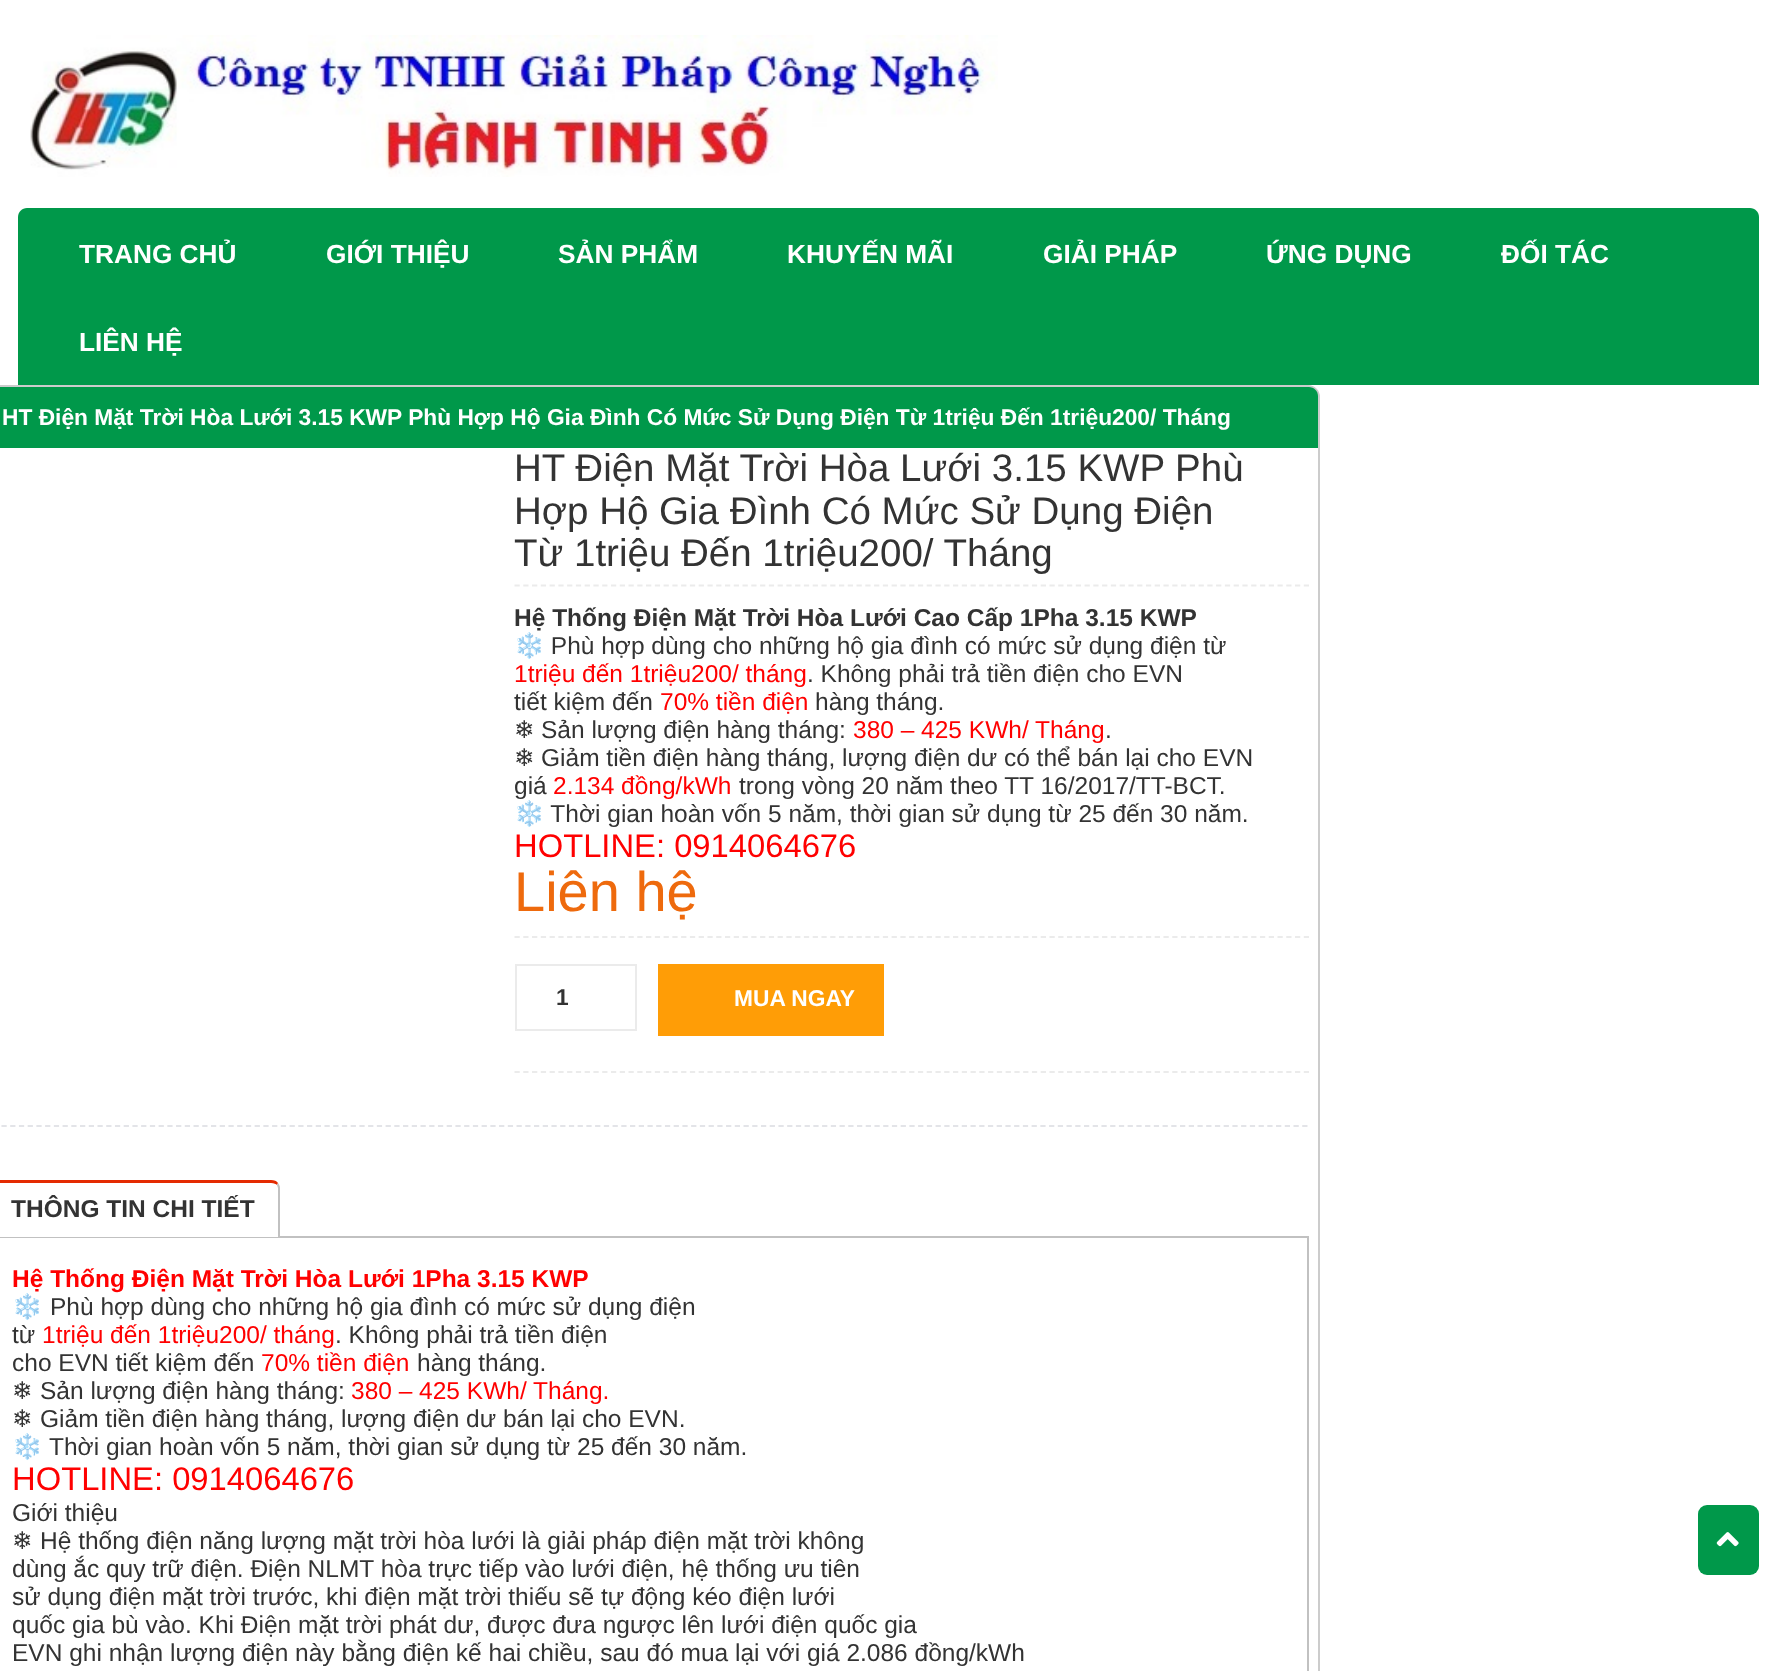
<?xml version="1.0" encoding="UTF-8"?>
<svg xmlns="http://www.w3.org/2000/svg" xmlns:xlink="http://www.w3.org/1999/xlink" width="1776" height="1671">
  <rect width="100%" height="100%" fill="#ffffff" />
  <image x="30" y="35" width="968" height="142" xlink:href="image1.png" />
  <path d="M 27 208 h 1723 c 5 0 9 4 9 9 v 168 h -1741 v -168 c 0 -5 4 -9 9 -9 z" fill="#00984a" />
  <rect x="-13" y="386" width="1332" height="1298" rx="11" fill="none" stroke="#cccccc" stroke-width="2" />
  <path d="M 0 387 h 1309 c 5 0 9 4 9 9 v 52 h -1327 v -52 c 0 -5 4 -9 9 -9 z" fill="#00984a" />
  <path d="M 514.5 585.5 h 794.5" fill="none" stroke="#ebebeb" stroke-width="1.8" stroke-dasharray="5.25 3.52" />
  <path d="M 514.5 937 h 794.5" fill="none" stroke="#ebebeb" stroke-width="1.8" stroke-dasharray="5.25 3.52" />
  <path d="M 514.5 1072 h 794.5" fill="none" stroke="#ebebeb" stroke-width="1.8" stroke-dasharray="5.25 3.52" />
  <rect x="516" y="965" width="120" height="65" fill="none" stroke="#ebebeb" stroke-width="2" />
  <rect x="658" y="964" width="226" height="72" fill="#ff9d06" />
  <path d="M -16 1126 h 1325" fill="none" stroke="#e3e4e8" stroke-width="1.8" stroke-dasharray="5.25 3.48" />
  <rect x="-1" y="1237" width="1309" height="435" fill="none" stroke="#c1c1c1" stroke-width="2" />
  <path d="M -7 1183 h 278 c 4 0 7 2 7 5 v 49 h -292 v -49 c 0 -3 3 -5 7 -5 z" fill="#ffffff" />
  <path d="M -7 1180 h 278 c 3 0 6 1 7 3 l -1 2 c -1 -1 -3 -2 -6 -2 h -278 c -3 0 -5 1 -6 2 l -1 -2 c 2 -2 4 -3 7 -3 z" fill="#e42a01" />
  <path d="M 278 1183 c 1 1 2 3 2 5 v 49 h -2 v -49 l -1 -3 z" fill="#c1c1c1" />
  <rect x="1698" y="1505" width="61" height="70" rx="9" fill="#00984a" />
  <image x="1716" y="1532" width="23" height="15" xlink:href="image2.png" />
  <text x="79" y="263" style="font-family: Liberation Sans; font-size: 26.25px; font-weight: bold; fill: #ffffff">TRANG CHỦ</text>
  <text x="326" y="263" style="font-family: Liberation Sans; font-size: 26.25px; font-weight: bold; fill: #ffffff">GIỚI THIỆU</text>
  <text x="558" y="263" style="font-family: Liberation Sans; font-size: 26.25px; font-weight: bold; fill: #ffffff">SẢN PHẨM</text>
  <text x="787" y="263" style="font-family: Liberation Sans; font-size: 26.25px; font-weight: bold; fill: #ffffff">KHUYẾN MÃI</text>
  <text x="1043" y="263" style="font-family: Liberation Sans; font-size: 26.25px; font-weight: bold; fill: #ffffff">GIẢI PHÁP</text>
  <text x="1266" y="263" style="font-family: Liberation Sans; font-size: 26.25px; font-weight: bold; fill: #ffffff">ỨNG DỤNG</text>
  <text x="1501" y="263" style="font-family: Liberation Sans; font-size: 26.25px; font-weight: bold; fill: #ffffff">ĐỐI TÁC</text>
  <text x="79" y="351" style="font-family: Liberation Sans; font-size: 26.25px; font-weight: bold; fill: #ffffff">LIÊN HỆ</text>
  <text x="2" y="425" style="font-family: Liberation Sans; font-size: 22.75px; font-weight: bold; fill: #ffffff">HT Điện Mặt Trời Hòa Lưới 3.15 KWP Phù Hợp Hộ Gia Đình Có Mức Sử Dụng Điện Từ 1triệu Đến 1triệu200/ Tháng</text>
  <text x="514" y="481" style="font-family: Liberation Sans; font-size: 38.5px; fill: #333333">HT Điện Mặt Trời Hòa Lưới 3.15 KWP Phù</text>
  <text x="514" y="524" style="font-family: Liberation Sans; font-size: 38.5px; fill: #333333">Hợp Hộ Gia Đình Có Mức Sử Dụng Điện</text>
  <text x="514" y="566" style="font-family: Liberation Sans; font-size: 38.5px; fill: #333333">Từ 1triệu Đến 1triệu200/ Tháng</text>
  <text x="514" y="626" style="font-family: Liberation Sans; font-size: 24.5px; font-weight: bold; fill: #333333">Hệ Thống Điện Mặt Trời Hòa Lưới Cao Cấp 1Pha 3.15 KWP</text>
  <text x="514" y="654" style="font-family: Noto Color Emoji; font-size: 24.5px; fill: #333333">❄</text>
  <text x="544" y="654" style="font-family: Liberation Sans; font-size: 24.5px; fill: #333333">️ Phù hợp dùng cho những hộ gia đình có mức sử dụng điện từ</text>
  <text x="514" y="682" style="font-family: Liberation Sans; font-size: 24.5px; fill: #ff0000">1triệu đến 1triệu200/ tháng</text>
  <text x="807" y="682" style="font-family: Liberation Sans; font-size: 24.5px; fill: #333333">. Không phải trả tiền điện cho EVN</text>
  <text x="514" y="710" style="font-family: Liberation Sans; font-size: 24.5px; fill: #333333">tiết kiệm đến</text>
  <text x="660" y="710" style="font-family: Liberation Sans; font-size: 24.5px; fill: #ff0000">70% tiền điện</text>
  <text x="815" y="710" style="font-family: Liberation Sans; font-size: 24.5px; fill: #333333">hàng tháng.</text>
  <text x="514" y="738" style="font-family: DejaVu Sans; font-size: 24.5px; fill: #333333">❄</text>
  <text x="541" y="738" style="font-family: Liberation Sans; font-size: 24.5px; fill: #333333">Sản lượng điện hàng tháng:</text>
  <text x="853" y="738" style="font-family: Liberation Sans; font-size: 24.5px; fill: #ff0000">380 – 425 KWh/ Tháng</text>
  <text x="1105" y="738" style="font-family: Liberation Sans; font-size: 24.5px; fill: #333333">.</text>
  <text x="514" y="766" style="font-family: DejaVu Sans; font-size: 24.5px; fill: #333333">❄</text>
  <text x="541" y="766" style="font-family: Liberation Sans; font-size: 24.5px; fill: #333333">Giảm tiền điện hàng tháng, lượng điện dư có thể bán lại cho EVN</text>
  <text x="514" y="794" style="font-family: Liberation Sans; font-size: 24.5px; fill: #333333">giá</text>
  <text x="553" y="794" style="font-family: Liberation Sans; font-size: 24.5px; fill: #ff0000">2.134 đồng/kWh</text>
  <text x="739" y="794" style="font-family: Liberation Sans; font-size: 24.5px; fill: #333333">trong vòng 20 năm theo TT 16/2017/TT-BCT.</text>
  <text x="514" y="822" style="font-family: Noto Color Emoji; font-size: 24.5px; fill: #333333">❄</text>
  <text x="544" y="822" style="font-family: Liberation Sans; font-size: 24.5px; fill: #333333">️ Thời gian hoàn vốn 5 năm, thời gian sử dụng từ 25 đến 30 năm.</text>
  <text x="514" y="857" style="font-family: Liberation Sans; font-size: 32.75px; fill: #ff0000">HOTLINE: 0914064676</text>
  <text x="514" y="911" style="font-family: Liberation Sans; font-size: 56px; fill: #ee6a0d">Liên hệ</text>
  <text x="556" y="1005" style="font-family: Liberation Sans; font-size: 22.75px; font-weight: bold; fill: #333333">1</text>
  <text x="734" y="1006" style="font-family: Liberation Sans; font-size: 22.75px; font-weight: bold; fill: #ffffff">MUA NGAY</text>
  <text x="11" y="1217" style="font-family: Liberation Sans; font-size: 24.5px; font-weight: bold; fill: #333333">THÔNG TIN CHI TIẾT</text>
  <text x="12" y="1287" style="font-family: Liberation Sans; font-size: 24.5px; font-weight: bold; fill: #ff0000">Hệ Thống Điện Mặt Trời Hòa Lưới 1Pha 3.15 KWP</text>
  <text x="12" y="1315" style="font-family: Noto Color Emoji; font-size: 24.5px; fill: #333333">❄️</text>
  <text x="50" y="1315" style="font-family: Liberation Sans; font-size: 24.5px; fill: #333333">Phù hợp dùng cho những hộ gia đình có mức sử dụng điện</text>
  <text x="12" y="1343" style="font-family: Liberation Sans; font-size: 24.5px; fill: #333333">từ</text>
  <text x="42" y="1343" style="font-family: Liberation Sans; font-size: 24.5px; fill: #ff0000">1triệu đến 1triệu200/ tháng</text>
  <rect x="131" y="1320" width="192" height="1" fill="#ffffff" />
  <text x="335" y="1343" style="font-family: Liberation Sans; font-size: 24.5px; fill: #333333">. Không phải trả tiền điện</text>
  <text x="12" y="1371" style="font-family: Liberation Sans; font-size: 24.5px; fill: #333333">cho EVN tiết kiệm đến</text>
  <text x="261" y="1371" style="font-family: Liberation Sans; font-size: 24.5px; fill: #ff0000">70% tiền điện</text>
  <rect x="327" y="1348" width="2" height="1" fill="#ffffff" />
  <text x="417" y="1371" style="font-family: Liberation Sans; font-size: 24.5px; fill: #333333">hàng tháng.</text>
  <rect x="412" y="1348" width="2" height="1" fill="#ffffff" />
  <text x="12" y="1399" style="font-family: DejaVu Sans; font-size: 24.5px; fill: #333333">❄</text>
  <text x="40" y="1399" style="font-family: Liberation Sans; font-size: 24.5px; fill: #333333">Sản lượng điện hàng tháng:</text>
  <text x="351" y="1399" style="font-family: Liberation Sans; font-size: 24.5px; fill: #ff0000">380 – 425 KWh/ Tháng.</text>
  <rect x="463" y="1376" width="70" height="1" fill="#ffffff" />
  <text x="12" y="1427" style="font-family: DejaVu Sans; font-size: 24.5px; fill: #333333">❄</text>
  <text x="40" y="1427" style="font-family: Liberation Sans; font-size: 24.5px; fill: #333333">Giảm tiền điện hàng tháng, lượng điện dư bán lại cho EVN.</text>
  <text x="12" y="1455" style="font-family: Noto Color Emoji; font-size: 24.5px; fill: #333333">❄️</text>
  <text x="49" y="1455" style="font-family: Liberation Sans; font-size: 24.5px; fill: #333333">Thời gian hoàn vốn 5 năm, thời gian sử dụng từ 25 đến 30 năm.</text>
  <text x="12" y="1490" style="font-family: Liberation Sans; font-size: 32.75px; fill: #ff0000">HOTLINE: 0914064676</text>
  <text x="12" y="1521" style="font-family: Liberation Sans; font-size: 24.5px; fill: #333333">Giới thiệu</text>
  <text x="12" y="1549" style="font-family: DejaVu Sans; font-size: 24.5px; fill: #333333">❄</text>
  <text x="40" y="1549" style="font-family: Liberation Sans; font-size: 24.5px; fill: #333333">Hệ thống điện năng lượng mặt trời hòa lưới là giải pháp điện mặt trời không</text>
  <text x="12" y="1577" style="font-family: Liberation Sans; font-size: 24.5px; fill: #333333">dùng ắc quy trữ điện. Điện NLMT hòa trực tiếp vào lưới điện, hệ thống ưu tiên</text>
  <text x="12" y="1605" style="font-family: Liberation Sans; font-size: 24.5px; fill: #333333">sử dụng điện mặt trời trước, khi điện mặt trời thiếu sẽ tự động kéo điện lưới</text>
  <text x="12" y="1633" style="font-family: Liberation Sans; font-size: 24.5px; fill: #333333">quốc gia bù vào. Khi Điện mặt trời phát dư, được đưa ngược lên lưới điện quốc gia</text>
  <text x="12" y="1661" style="font-family: Liberation Sans; font-size: 24.5px; fill: #333333">EVN ghi nhận lượng điện này bằng điện kế hai chiều, sau đó mua lại với giá 2.086 đồng/kWh</text>
</svg>
